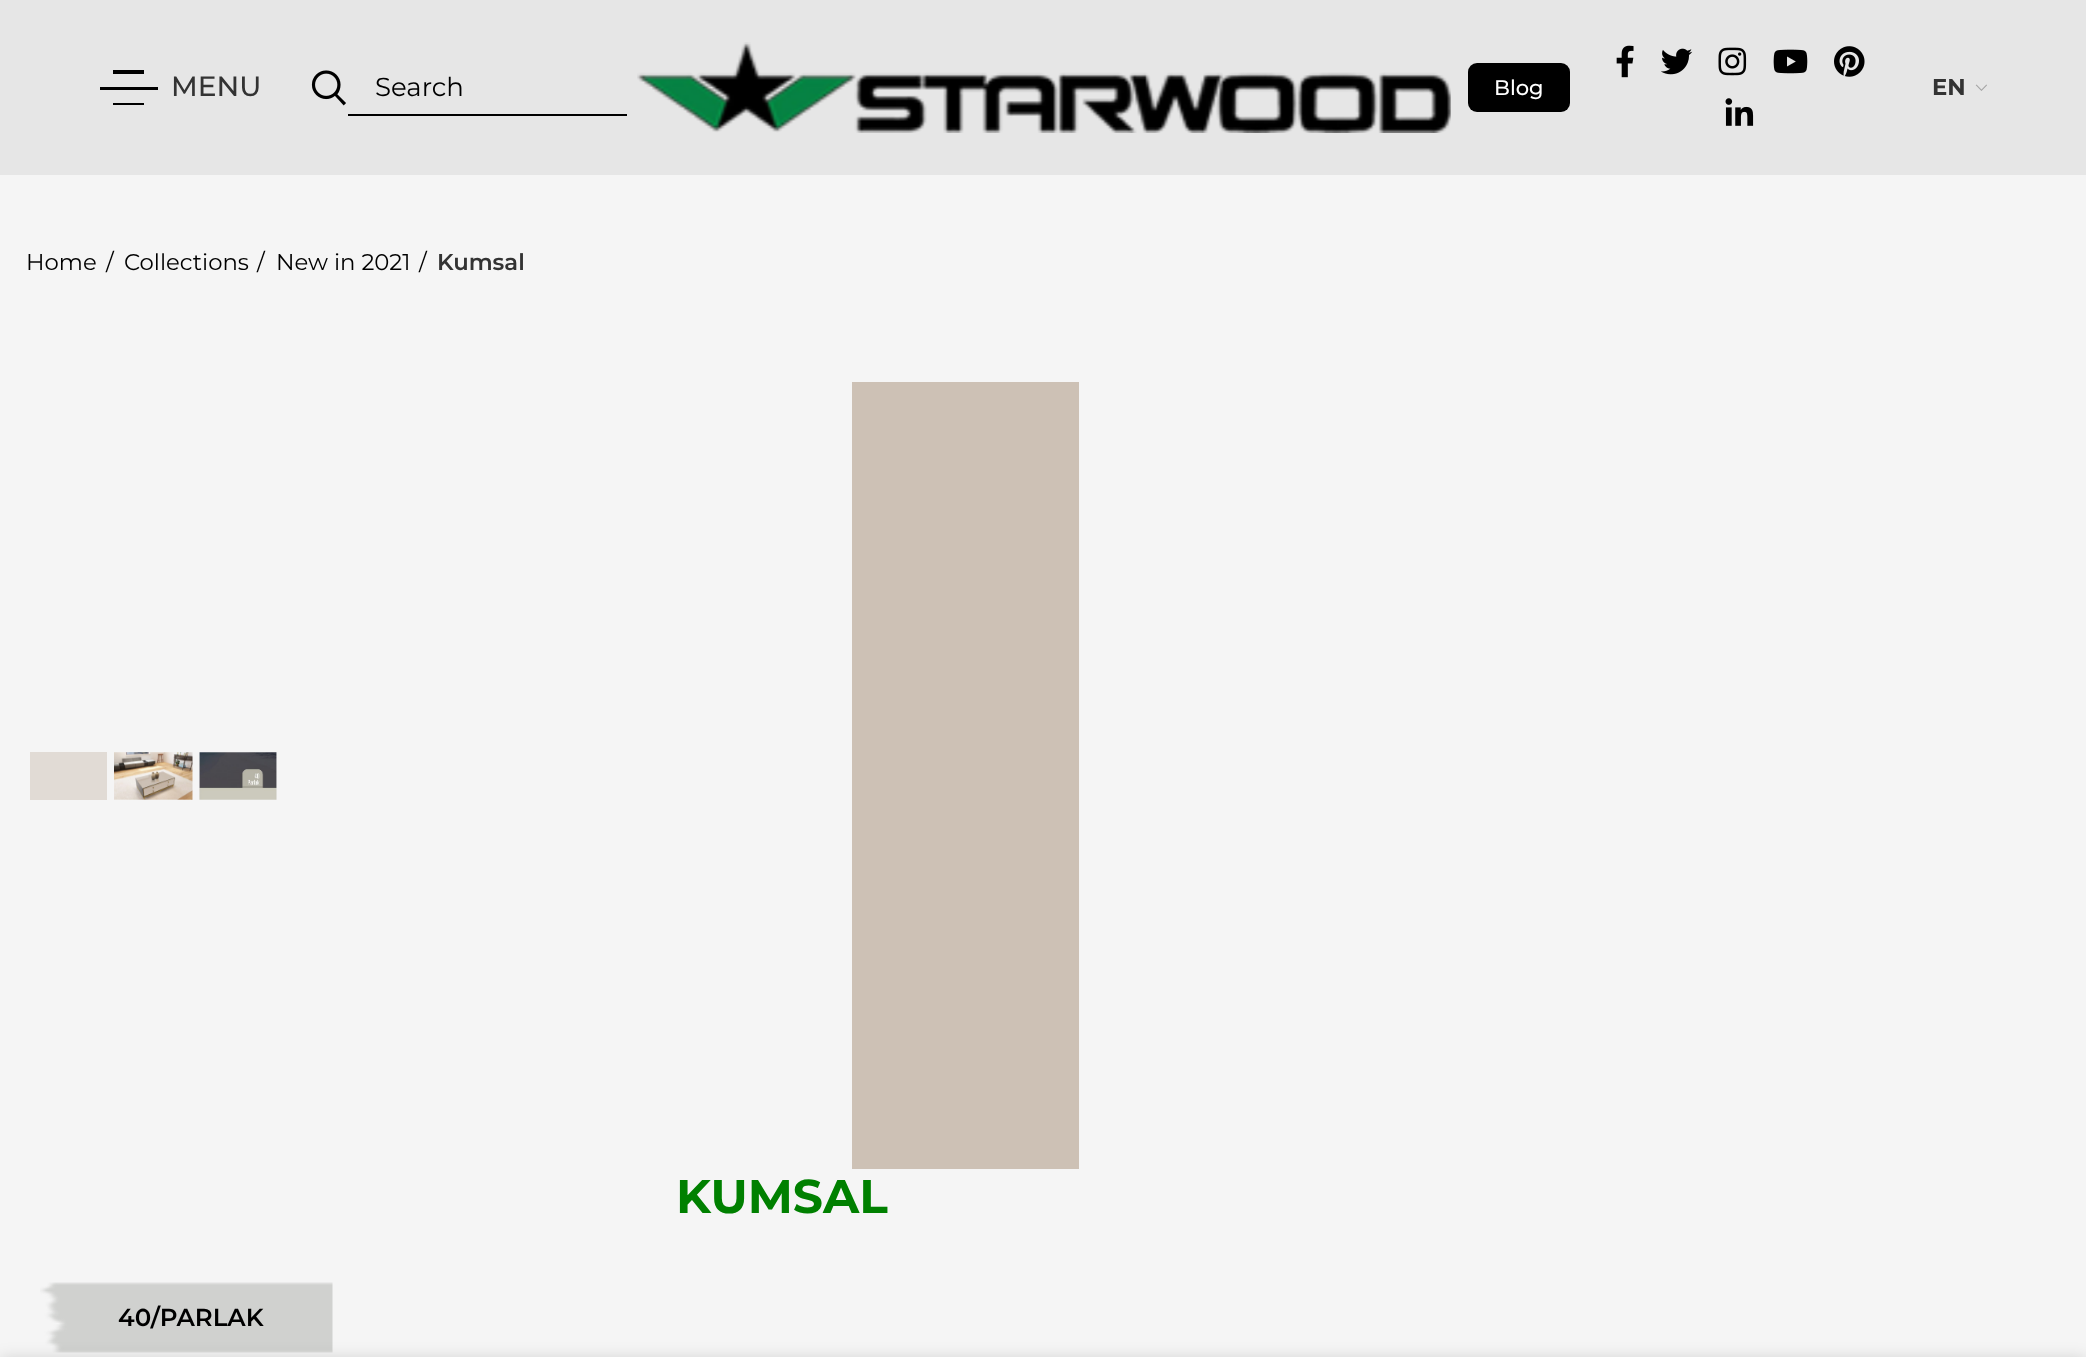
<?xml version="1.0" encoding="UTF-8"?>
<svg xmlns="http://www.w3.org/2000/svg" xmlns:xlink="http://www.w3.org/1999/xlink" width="2086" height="1357">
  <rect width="100%" height="100%" fill="#f5f5f5" />
  <rect width="2086" height="175" fill="#e6e6e6" />
  <rect x="113" y="70" width="31" height="4" fill="#000000" />
  <rect x="100" y="87" width="58" height="3" fill="#000000" />
  <rect x="113" y="103" width="31" height="2" fill="#000000" />
  <image x="311" y="70" width="35" height="36" xlink:href="image1.png" />
  <rect x="348" y="114" width="279" height="2" fill="#000000" />
  <image x="637" y="42" width="814" height="91" xlink:href="image2.png" />
  <rect x="1468" y="63" width="102" height="49" rx="9" fill="#000000" />
  <image x="1616" y="45" width="18" height="33" xlink:href="image3.png" />
  <image x="1661" y="48" width="32" height="27" xlink:href="image4.png" />
  <image x="1718" y="47" width="29" height="29" xlink:href="image5.png" />
  <image x="1773" y="49" width="35" height="25" xlink:href="image6.png" />
  <image x="1834" y="46" width="31" height="31" xlink:href="image7.png" />
  <image x="1725" y="98" width="29" height="28" xlink:href="image8.png" />
  <image x="1975" y="84" width="12" height="7" xlink:href="image9.png" />
  <rect x="30" y="752" width="77" height="48" fill="#e1dbd5" />
  <image x="114" y="752" width="79" height="48" xlink:href="image10.png" />
  <image x="199" y="752" width="78" height="48" xlink:href="image11.png" />
  <rect x="852" y="382" width="227" height="787" fill="#cdc1b5" />
  <image x="40" y="1282" width="293" height="71" xlink:href="image12.png" />
  <rect y="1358" width="2086" height="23" fill="#000000" fill-opacity="0.14" filter="blur(8px)" />
  <text x="171" y="96" style="font-family: Montserrat; font-size: 28px; font-weight: 500; fill: #333333">MENU</text>
  <text x="375" y="96" style="font-family: Montserrat; font-size: 26px; fill: #000000">Search</text>
  <text x="1494" y="95" style="font-family: Montserrat; font-size: 21px; font-weight: 500; fill: #ffffff">Blog</text>
  <text x="1932" y="95" style="font-family: Montserrat; font-size: 22.75px; font-weight: bold; fill: #333333">EN</text>
  <text x="26" y="270" style="font-family: Montserrat; font-size: 22.75px; fill: #000000">Home</text>
  <text x="106" y="270" style="font-family: Montserrat; font-size: 22.75px; fill: #000000">/</text>
  <text x="124" y="270" style="font-family: Montserrat; font-size: 22.75px; fill: #000000">Collections</text>
  <text x="257" y="270" style="font-family: Montserrat; font-size: 22.75px; fill: #000000">/</text>
  <text x="276" y="270" style="font-family: Montserrat; font-size: 22.75px; fill: #000000">New in 2021</text>
  <text x="419" y="270" style="font-family: Montserrat; font-size: 22.75px; fill: #000000">/</text>
  <text x="437" y="270" style="font-family: Montserrat; font-size: 22.75px; font-weight: 600; fill: #333333">Kumsal</text>
  <text x="676" y="1213" style="font-family: Montserrat; font-size: 47.25px; font-weight: bold; fill: #008000">KUMSAL</text>
  <text x="118" y="1326" style="font-family: Montserrat; font-size: 24.5px; font-weight: 600; fill: #000000">40/PARLAK</text>
</svg>
